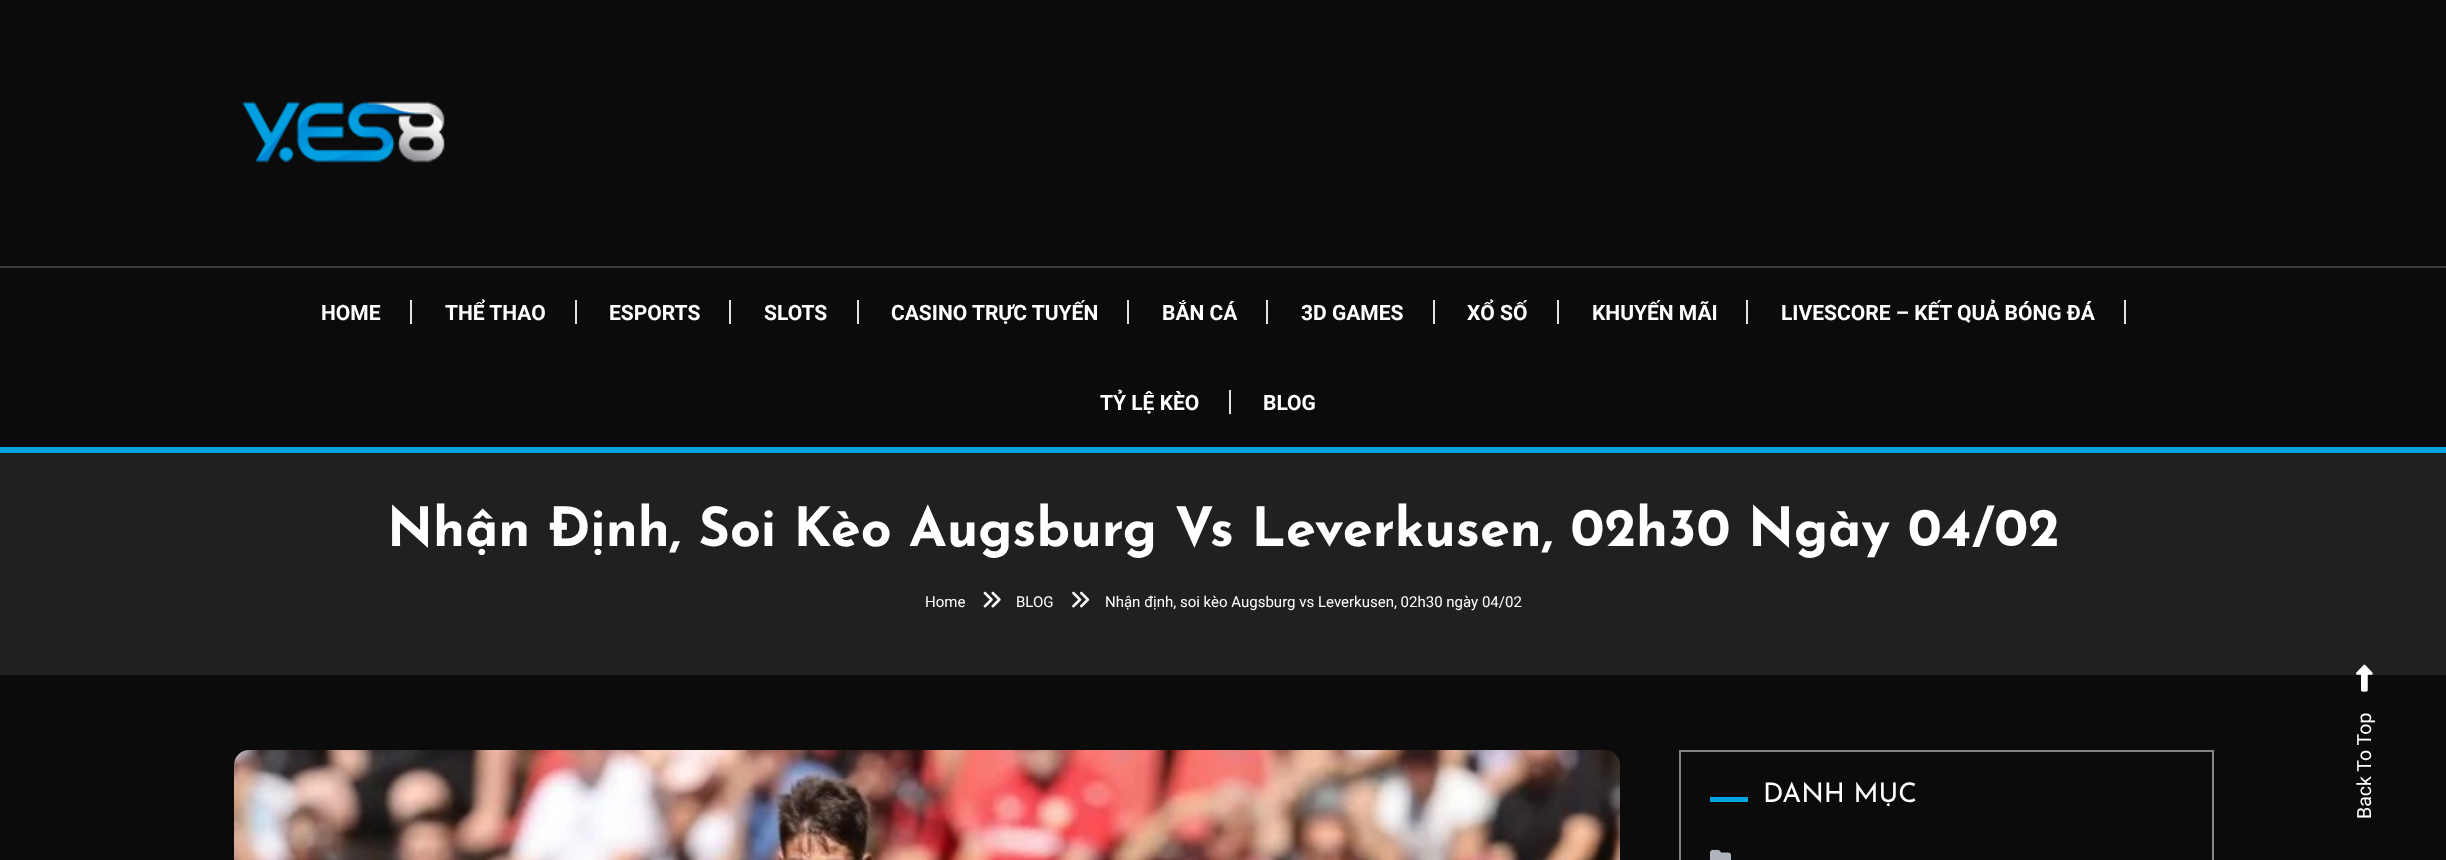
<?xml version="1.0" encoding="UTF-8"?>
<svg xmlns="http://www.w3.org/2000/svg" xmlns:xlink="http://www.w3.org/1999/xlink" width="2446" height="860">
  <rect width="100%" height="100%" fill="#0b0b0b" />
  <image x="242" y="101" width="203" height="62" xlink:href="image1.png" />
  <rect y="266" width="2446" height="2" fill="#3c3c3c" />
  <rect x="410" y="300" width="2" height="24" fill="#e1e1e1" />
  <rect x="575" y="300" width="2" height="24" fill="#e1e1e1" />
  <rect x="729" y="300" width="2" height="24" fill="#e1e1e1" />
  <rect x="857" y="300" width="2" height="24" fill="#e1e1e1" />
  <rect x="1127" y="300" width="2" height="24" fill="#e1e1e1" />
  <rect x="1266" y="300" width="2" height="24" fill="#e1e1e1" />
  <rect x="1433" y="300" width="2" height="24" fill="#e1e1e1" />
  <rect x="1557" y="300" width="2" height="24" fill="#e1e1e1" />
  <rect x="1746" y="300" width="2" height="24" fill="#e1e1e1" />
  <rect x="2124" y="300" width="2" height="24" fill="#e1e1e1" />
  <rect x="1229" y="390" width="2" height="24" fill="#e1e1e1" />
  <rect y="453" width="2446" height="222" fill="#202020" />
  <rect y="447" width="2446" height="6" fill="#01a4df" />
  <image x="983" y="591" width="18" height="17" xlink:href="image2.png" />
  <image x="1072" y="591" width="18" height="17" xlink:href="image3.png" />
  <image x="234" y="750" width="1386" height="110" xlink:href="image4.png" />
  <rect x="1680" y="751" width="533" height="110" fill="none" stroke="#858585" stroke-width="2" />
  <rect x="1710" y="797" width="38" height="5" fill="#01a4df" />
  <image x="1710" y="849" width="21" height="11" xlink:href="image5.png" />
  <image x="2356" y="664" width="17" height="28" xlink:href="image6.png" />
  <text x="321" y="320" style="font-family: Roboto; font-size: 21px; font-weight: bold; fill: #ffffff">HOME</text>
  <text x="445" y="320" style="font-family: Roboto; font-size: 21px; font-weight: bold; fill: #ffffff">THỂ THAO</text>
  <text x="609" y="320" style="font-family: Roboto; font-size: 21px; font-weight: bold; fill: #ffffff">ESPORTS</text>
  <text x="764" y="320" style="font-family: Roboto; font-size: 21px; font-weight: bold; fill: #ffffff">SLOTS</text>
  <text x="891" y="320" style="font-family: Roboto; font-size: 21px; font-weight: bold; fill: #ffffff">CASINO TRỰC TUYẾN</text>
  <text x="1162" y="320" style="font-family: Roboto; font-size: 21px; font-weight: bold; fill: #ffffff">BẮN CÁ</text>
  <text x="1301" y="320" style="font-family: Roboto; font-size: 21px; font-weight: bold; fill: #ffffff">3D GAMES</text>
  <text x="1467" y="320" style="font-family: Roboto; font-size: 21px; font-weight: bold; fill: #ffffff">XỔ SỐ</text>
  <text x="1592" y="320" style="font-family: Roboto; font-size: 21px; font-weight: bold; fill: #ffffff">KHUYẾN MÃI</text>
  <text x="1781" y="320" style="font-family: Roboto; font-size: 21px; font-weight: bold; fill: #ffffff">LIVESCORE – KẾT QUẢ BÓNG ĐÁ</text>
  <text x="1100" y="410" style="font-family: Roboto; font-size: 21px; font-weight: bold; fill: #ffffff">TỶ LỆ KÈO</text>
  <text x="1263" y="410" style="font-family: Roboto; font-size: 21px; font-weight: bold; fill: #ffffff">BLOG</text>
  <text x="387" y="546" style="font-family: Josefin Sans; font-size: 54px; font-weight: bold; fill: #ffffff">Nhận Định, Soi Kèo Augsburg Vs Leverkusen, 02h30 Ngày 04/02</text>
  <text x="925" y="607" style="font-family: Roboto; font-size: 15px; fill: #ffffff">Home</text>
  <text x="1016" y="607" style="font-family: Roboto; font-size: 15px; fill: #ffffff">BLOG</text>
  <text x="1105" y="607" style="font-family: Roboto; font-size: 15px; fill: #ffffff">Nhận định, soi kèo Augsburg vs Leverkusen, 02h30 ngày 04/02</text>
  <text x="1763" y="802" style="font-family: Josefin Sans; font-size: 27px; fill: #ffffff">DANH MỤC</text>
  <text x="2371" y="819" transform="rotate(-90 2371 819)" style="font-family: Roboto; font-size: 19.5px; fill: #ffffff">Back To Top</text>
</svg>
